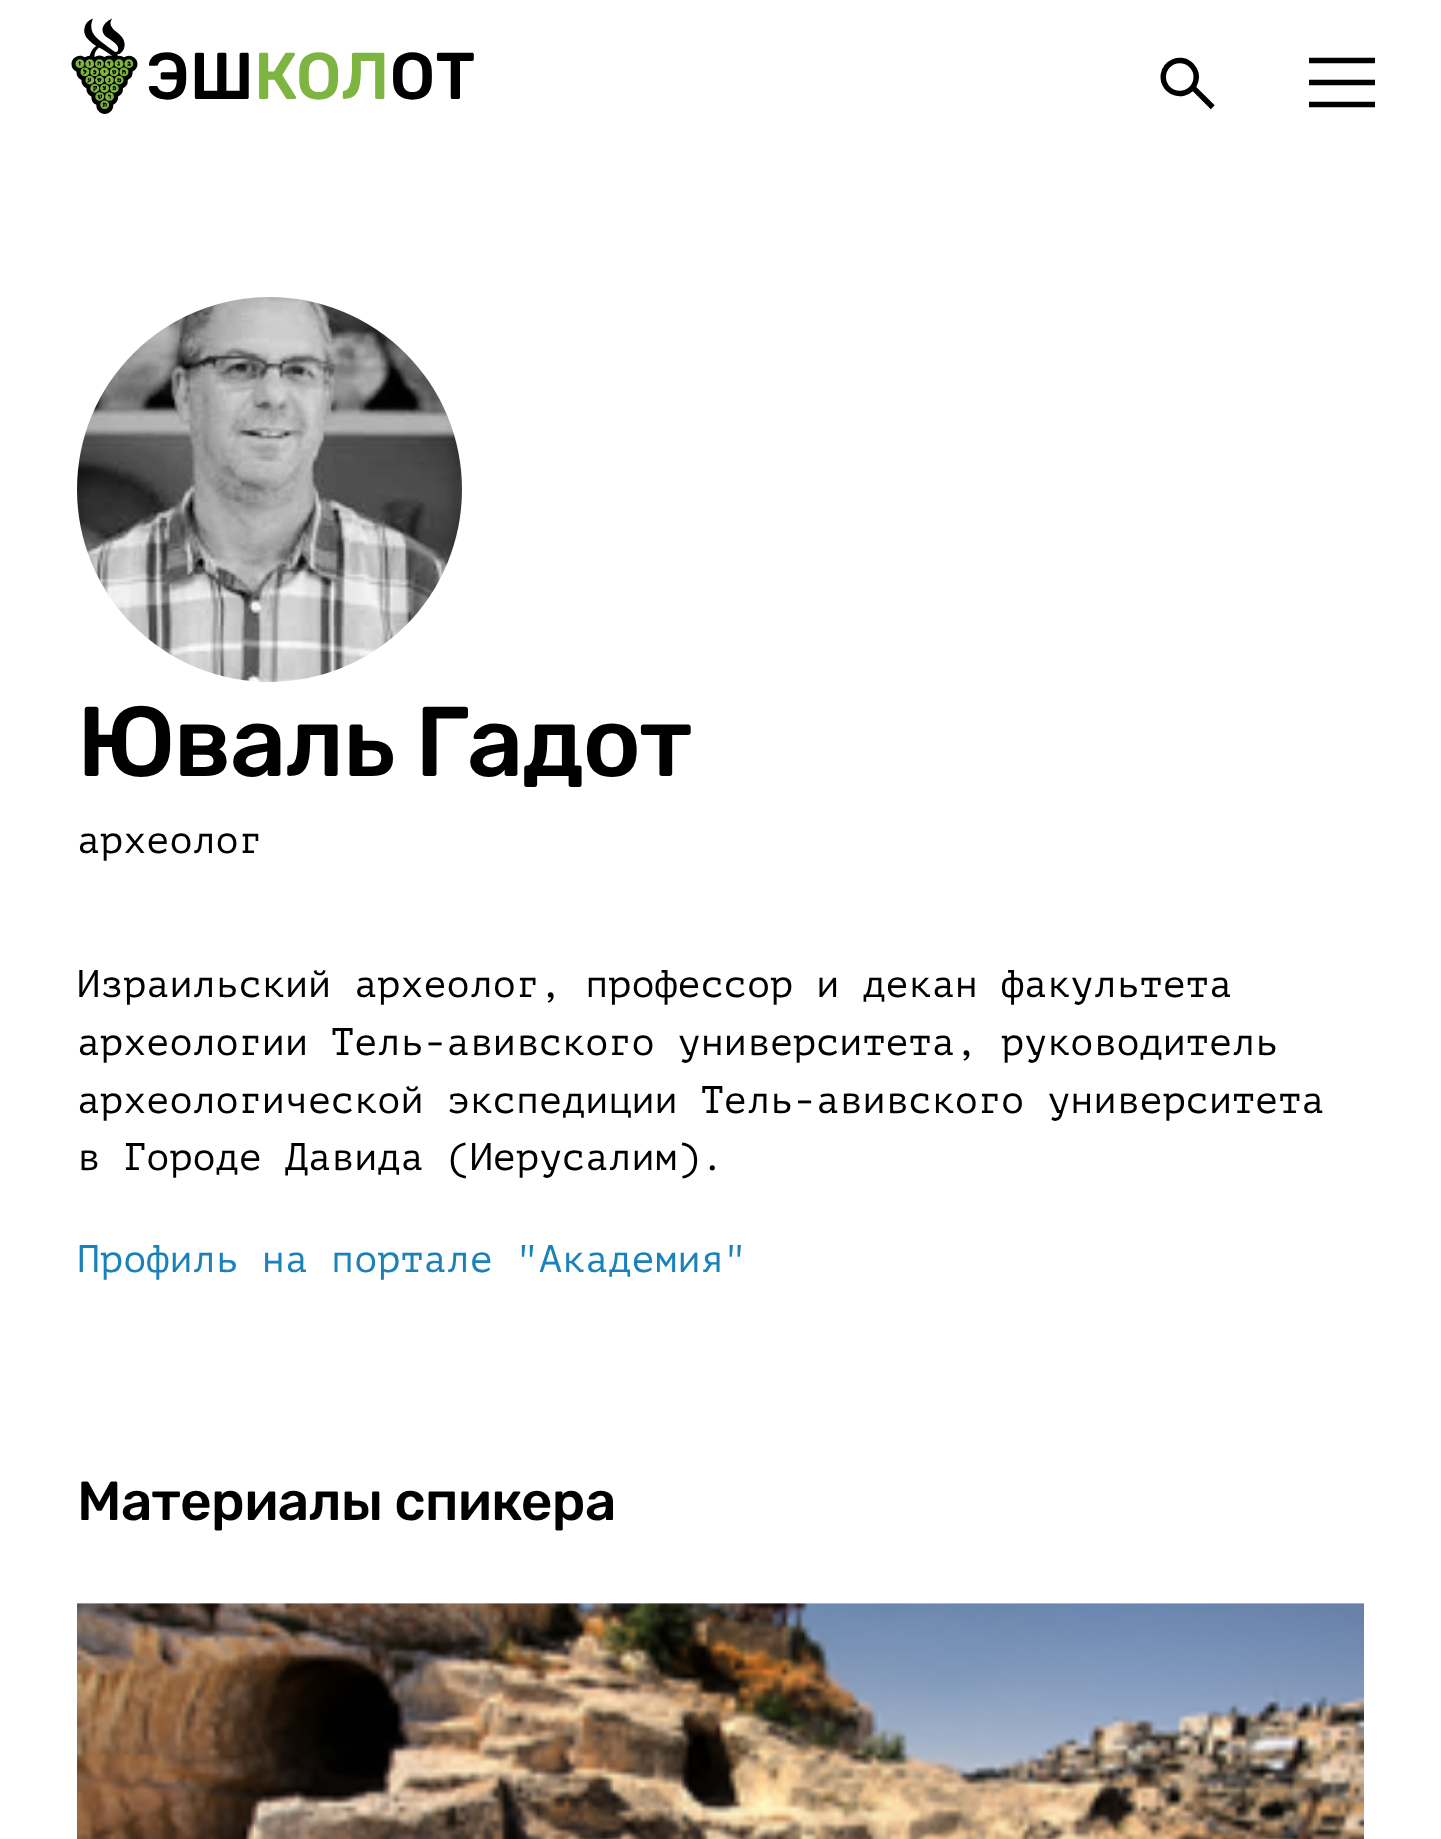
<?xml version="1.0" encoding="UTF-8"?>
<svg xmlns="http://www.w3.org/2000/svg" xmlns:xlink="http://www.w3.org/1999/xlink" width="1441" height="1839">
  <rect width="100%" height="100%" fill="#ffffff" />
  <image x="71" y="18" width="67" height="96" xlink:href="image1.png" />
  <image x="148" y="52" width="326" height="48" xlink:href="image2.png" />
  <image x="1160" y="57" width="55" height="53" xlink:href="image3.png" />
  <image x="1309" y="57" width="66" height="51" xlink:href="image4.png" />
  <image x="77" y="297" width="385" height="385" xlink:href="image5.png" />
  <image x="77" y="1603" width="1287" height="236" xlink:href="image6.png" />
  <text x="77" y="776" style="font-family: Rubik; font-size: 99px; font-weight: 500; letter-spacing: -1.6px; fill: #000000">Юваль Гадот</text>
  <text x="77" y="853" style="font-family: PT Mono; font-size: 38.5px; fill: #000000">археолог</text>
  <text x="77" y="997" style="font-family: PT Mono; font-size: 38.5px; fill: #000000">Израильский археолог, профессор и декан факультета</text>
  <text x="77" y="1055" style="font-family: PT Mono; font-size: 38.5px; fill: #000000">археологии Тель-авивского университета, руководитель</text>
  <text x="77" y="1113" style="font-family: PT Mono; font-size: 38.5px; fill: #000000">археологической экспедиции Тель-авивского университета</text>
  <text x="77" y="1170" style="font-family: PT Mono; font-size: 38.5px; fill: #000000">в Городе Давида (Иерусалим).</text>
  <text x="77" y="1272" style="font-family: PT Mono; font-size: 38.5px; fill: #1a81bb">Профиль на портале "Академия"</text>
  <text x="77" y="1520" style="font-family: Rubik; font-size: 55px; font-weight: 500; letter-spacing: -0.7px; fill: #000000">Материалы спикера</text>
</svg>
